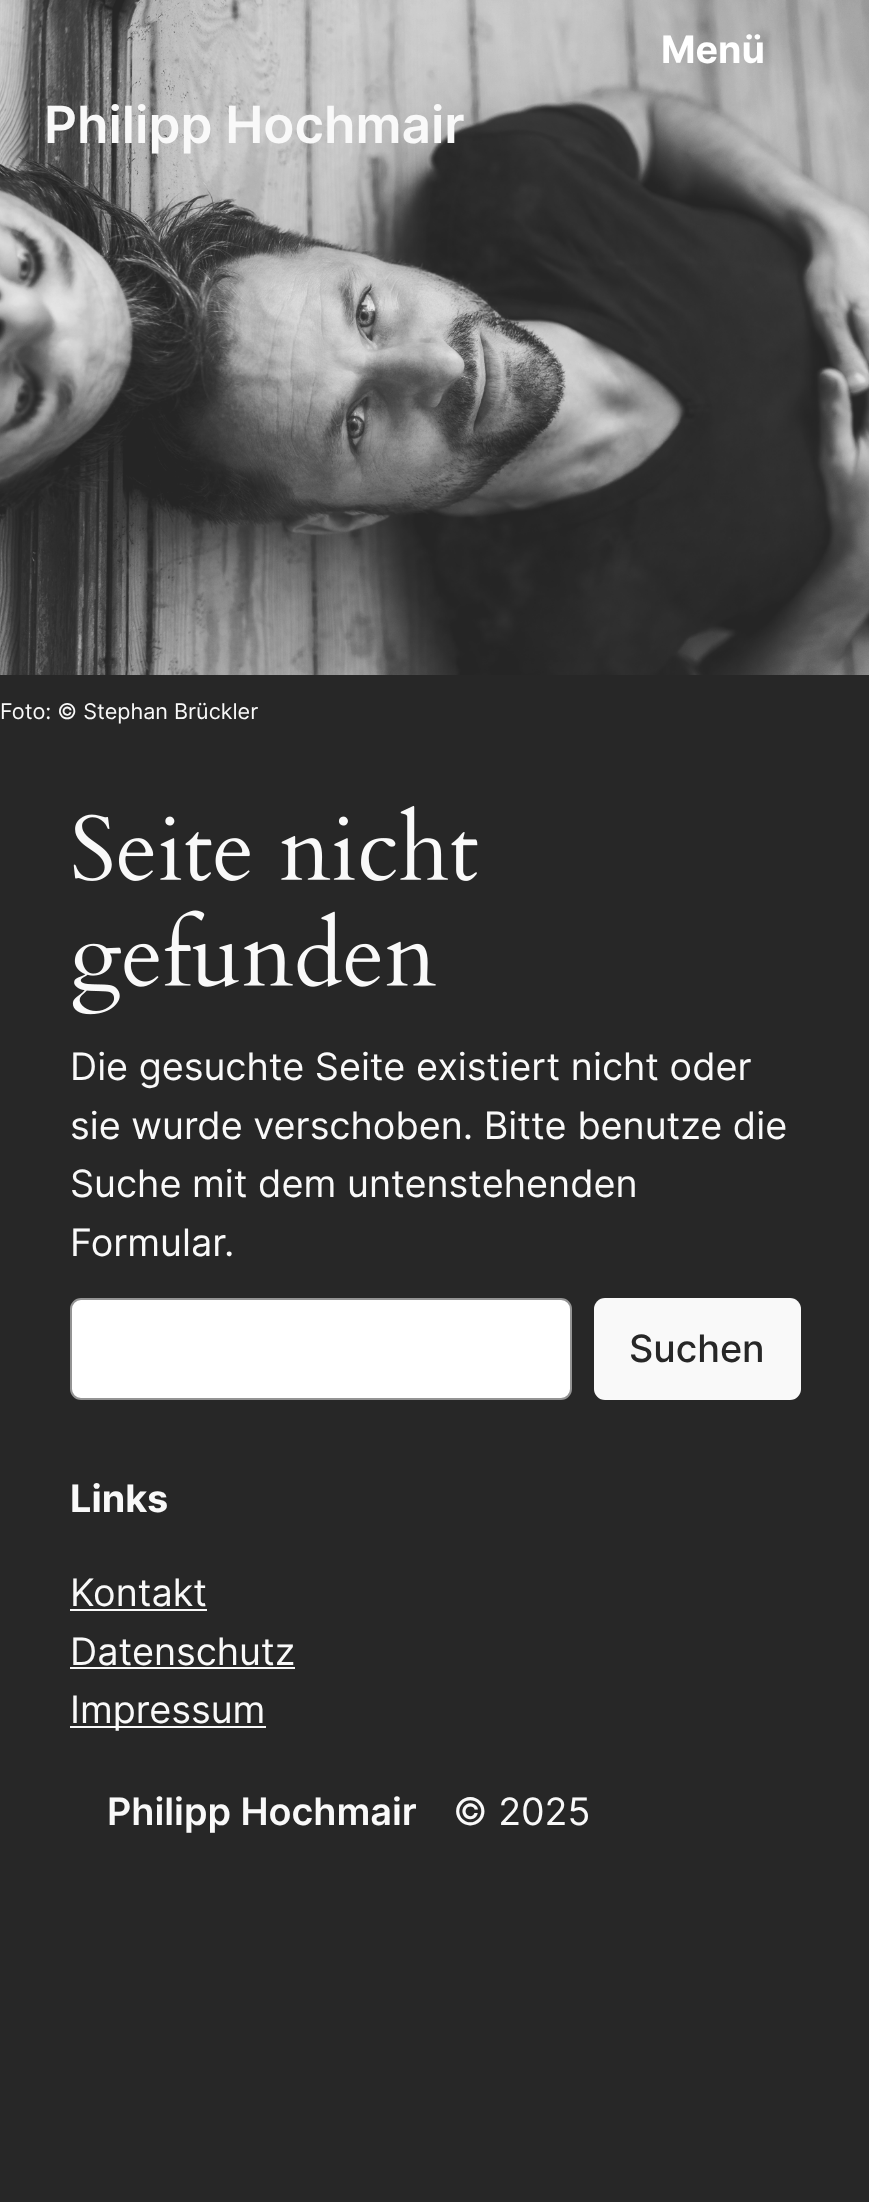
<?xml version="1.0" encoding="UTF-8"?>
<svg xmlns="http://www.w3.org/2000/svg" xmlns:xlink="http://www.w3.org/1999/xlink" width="869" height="2202">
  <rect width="100%" height="100%" fill="#272727" />
  <image x="0" y="0" width="869" height="675" xlink:href="image1.png" />
  <image x="73" y="805" width="405" height="76" xlink:href="image2.png" />
  <image x="72" y="910" width="364" height="105" xlink:href="image3.png" />
  <rect x="71" y="1299" width="500" height="100" rx="10" fill="#ffffff" stroke="#949494" stroke-width="2" />
  <rect x="594" y="1298" width="207" height="102" rx="11" fill="#f9f9f9" />
  <rect x="70" y="1609" width="137" height="2" fill="#f9f9f9" />
  <rect x="70" y="1667" width="225" height="2" fill="#f9f9f9" />
  <rect x="70" y="1726" width="196" height="2" fill="#f9f9f9" />
  <text x="661" y="63" style="font-family: Inter; font-size: 37.75px; font-weight: bold; fill: #ffffff">Menü</text>
  <text x="44" y="143" style="font-family: Inter; font-size: 51.25px; font-weight: 600; fill: #f9f9f9">Philipp Hochmair</text>
  <text x="0" y="719" style="font-family: Inter; font-size: 21.6px; fill: #f9f9f9">Foto: © Stephan Brückler</text>
  <text x="70" y="1080" style="font-family: Inter; font-size: 37.75px; fill: #f9f9f9">Die gesuchte Seite existiert nicht oder</text>
  <text x="70" y="1139" style="font-family: Inter; font-size: 37.75px; fill: #f9f9f9">sie wurde verschoben. Bitte benutze die</text>
  <text x="70" y="1197" style="font-family: Inter; font-size: 37.75px; fill: #f9f9f9">Suche mit dem untenstehenden</text>
  <text x="70" y="1256" style="font-family: Inter; font-size: 37.75px; fill: #f9f9f9">Formular.</text>
  <text x="629" y="1362" style="font-family: Inter; font-size: 37.75px; font-weight: 500; fill: #272727">Suchen</text>
  <text x="70" y="1512" style="font-family: Inter; font-size: 37.75px; font-weight: bold; fill: #f9f9f9">Links</text>
  <text x="70" y="1606" style="font-family: Inter; font-size: 37.75px; fill: #f9f9f9">Kontakt</text>
  <text x="70" y="1665" style="font-family: Inter; font-size: 37.75px; fill: #f9f9f9">Datenschutz</text>
  <text x="70" y="1723" style="font-family: Inter; font-size: 37.75px; fill: #f9f9f9">Impressum</text>
  <text x="107" y="1825" style="font-family: Inter; font-size: 37.75px; font-weight: 600; fill: #f9f9f9">Philipp Hochmair</text>
  <text x="453" y="1825" style="font-family: Inter; font-size: 37.75px; fill: #f9f9f9">© 2025</text>
</svg>
